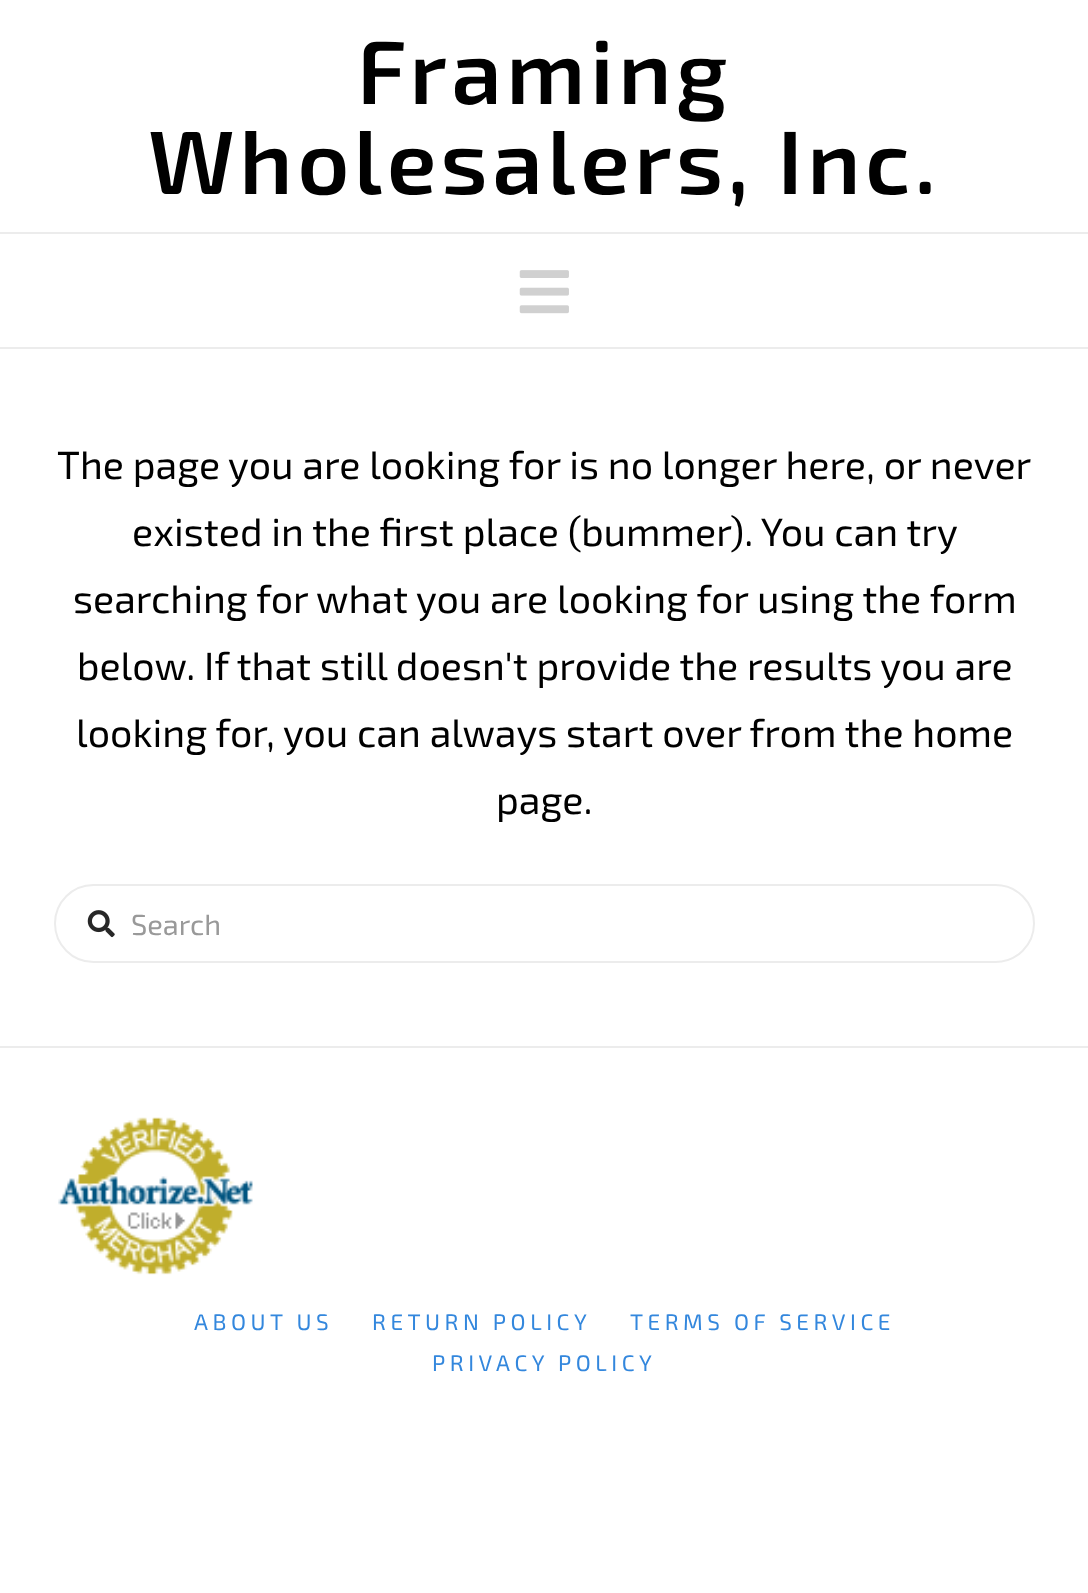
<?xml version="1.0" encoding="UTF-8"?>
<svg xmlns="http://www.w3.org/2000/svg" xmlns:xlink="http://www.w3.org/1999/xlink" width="1088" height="1593">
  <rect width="100%" height="100%" fill="#ffffff" />
  <rect y="232" width="1088" height="2" fill="#ececec" />
  <rect y="347" width="1088" height="2" fill="#ececec" />
  <image x="519" y="270" width="50" height="44" xlink:href="image1.png" />
  <rect x="55" y="885" width="979" height="77" rx="38.5" fill="none" stroke="#ececec" stroke-width="2" />
  <image x="87" y="910" width="28" height="28" xlink:href="image2.png" />
  <rect y="1046" width="1088" height="2" fill="#ececec" />
  <image x="58" y="1117" width="195" height="158" xlink:href="image3.png" />
  <text x="357" y="104" style="font-family: 'Exo 2'; font-size: 90px; font-weight: 600; letter-spacing: 4.5px; fill: #000000">Framing</text>
  <text x="148" y="194" style="font-family: 'Exo 2'; font-size: 90px; font-weight: 600; letter-spacing: 4.5px; fill: #000000">Wholesalers, Inc.</text>
  <text x="57" y="479" style="font-family: 'Exo 2'; font-size: 39.4px; fill: #000000">The page you are looking for is no longer here, or never</text>
  <text x="132" y="546" style="font-family: 'Exo 2'; font-size: 39.4px; fill: #000000">existed in the first place (bummer). You can try</text>
  <text x="73" y="613" style="font-family: 'Exo 2'; font-size: 39.4px; fill: #000000">searching for what you are looking for using the form</text>
  <text x="77" y="680" style="font-family: 'Exo 2'; font-size: 39.4px; fill: #000000">below. If that still doesn't provide the results you are</text>
  <text x="76" y="747" style="font-family: 'Exo 2'; font-size: 39.4px; fill: #000000">looking for, you can always start over from the home</text>
  <text x="496" y="814" style="font-family: 'Exo 2'; font-size: 39.4px; fill: #000000">page.</text>
  <text x="131" y="935" style="font-family: 'Exo 2'; font-size: 29px; fill: #999999">Search</text>
  <text x="194" y="1330" style="font-family: 'Exo 2'; font-size: 22.5px; letter-spacing: 4.5px; fill: #3387dd">ABOUT US</text>
  <text x="372" y="1330" style="font-family: 'Exo 2'; font-size: 22.5px; letter-spacing: 4.5px; fill: #3387dd">RETURN POLICY</text>
  <text x="630" y="1330" style="font-family: 'Exo 2'; font-size: 22.5px; letter-spacing: 4.5px; fill: #3387dd">TERMS OF SERVICE</text>
  <text x="432" y="1371" style="font-family: 'Exo 2'; font-size: 22.5px; letter-spacing: 4.5px; fill: #3387dd">PRIVACY POLICY</text>
</svg>
